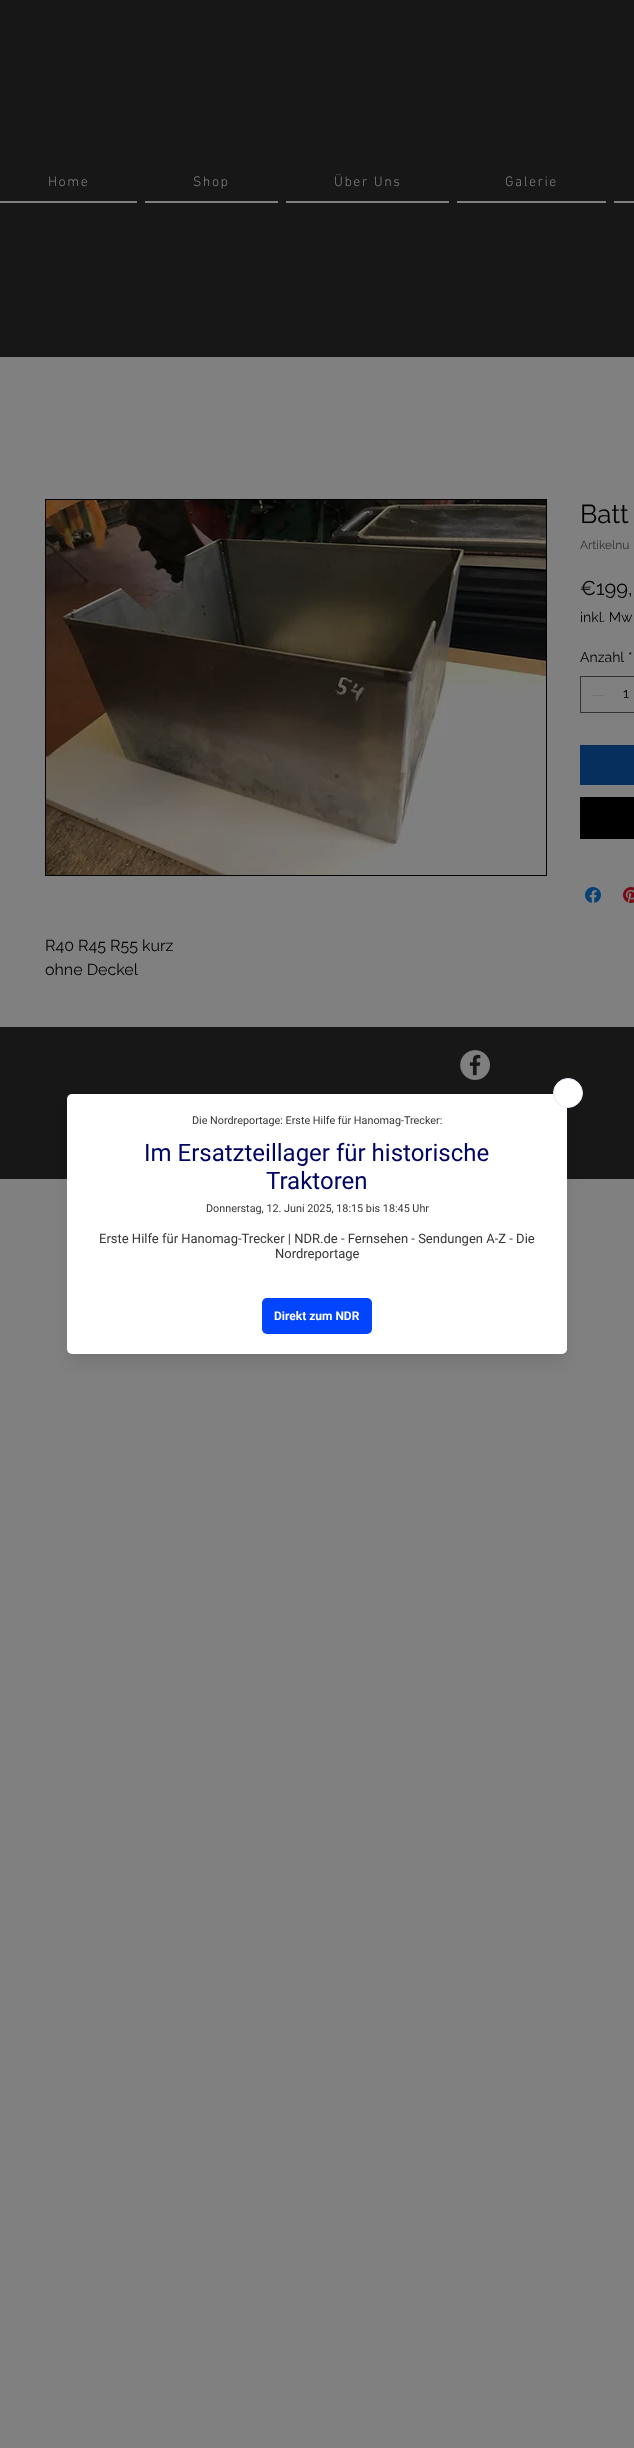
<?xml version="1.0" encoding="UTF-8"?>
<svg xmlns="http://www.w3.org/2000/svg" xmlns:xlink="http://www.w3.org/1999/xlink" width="634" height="2448">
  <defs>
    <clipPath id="clip1"><rect x="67" y="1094" width="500" height="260" /></clipPath>
  </defs>
  <rect width="100%" height="100%" fill="#808080" />
  <rect width="634" height="357" fill="#181717" />
  <rect y="201" width="137" height="2" fill="#808080" />
  <rect x="145" y="201" width="133" height="2" fill="#808080" />
  <rect x="286" y="201" width="163" height="2" fill="#808080" />
  <rect x="457" y="201" width="149" height="2" fill="#808080" />
  <rect x="614" y="201" width="20" height="2" fill="#808080" />
  <rect x="580.5" y="676.5" width="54" height="36" fill="none" stroke="#333333" />
  <rect x="592" y="695" width="13" height="1" fill="#727272" />
  <rect x="580" y="745" width="54" height="40" fill="#072f5d" />
  <rect x="580" y="797" width="54" height="42" fill="#000000" />
  <image x="585" y="887" width="16" height="16" xlink:href="image1.png" />
  <image x="623" y="887" width="11" height="16" xlink:href="image2.png" />
  <rect x="45.5" y="499.5" width="501" height="376" fill="none" stroke="#000000" />
  <image x="46" y="500" width="500" height="375" xlink:href="image3.png" />
  <rect y="1027" width="634" height="152" fill="#181717" />
  <image x="460" y="1050" width="30" height="30" xlink:href="image4.png" />
  <rect x="70" y="1107" width="494" height="254" rx="2" fill="#000000" fill-opacity="0.1" filter="blur(7.5px)" />
  <g clip-path="url(#clip1)">
    <rect x="70" y="1097" width="494" height="254" rx="2" fill="#000000" fill-opacity="0.12" filter="blur(10px)" />
  </g>
  <rect x="67" y="1094" width="500" height="260" rx="5" fill="#ffffff" />
  <circle cx="568" cy="1093" r="14.5" fill="#ffffff" stroke="#e2e8f0" />
  <rect x="262" y="1298" width="110" height="36" rx="5" fill="#0345fc" />
  <text x="48" y="186" style="font-family: 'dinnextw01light'; font-size: 14px; font-weight: 300; letter-spacing: 1.5px; fill: #808080">Home</text>
  <text x="193" y="186" style="font-family: 'dinnextw01light'; font-size: 14px; font-weight: 300; letter-spacing: 1.5px; fill: #808080">Shop</text>
  <text x="334" y="186" style="font-family: 'dinnextw01light'; font-size: 14px; font-weight: 300; letter-spacing: 1.5px; fill: #808080">Über Uns</text>
  <text x="505" y="186" style="font-family: 'dinnextw01light'; font-size: 14px; font-weight: 300; letter-spacing: 1.5px; fill: #808080">Galerie</text>
  <text x="580" y="523" style="font-family: Raleway; font-size: 26px; fill: #000000">Batt</text>
  <text x="580" y="549" style="font-family: Raleway; font-size: 12px; fill: #303030">Artikelnu</text>
  <text x="580" y="595" style="font-family: Raleway; font-size: 20px; fill: #000000">€199,</text>
  <text x="580" y="622" style="font-family: Raleway; font-size: 14px; fill: #000000">inkl. Mw</text>
  <text x="580" y="662" style="font-family: Raleway; font-size: 14px; fill: #000000">Anzahl</text>
  <text x="628" y="662" style="font-family: Raleway; font-size: 14px; fill: #000000">*</text>
  <text x="623" y="698" style="font-family: Raleway; font-size: 14px; fill: #000000">1</text>
  <text x="45" y="951" style="font-family: Raleway; font-size: 16px; fill: #000000">R40 R45 R55 kurz</text>
  <text x="45" y="975" style="font-family: Raleway; font-size: 16px; fill: #000000">ohne Deckel</text>
  <text x="192" y="1124" style="font-family: Roboto; font-size: 10.8px; fill: #363636">Die Nordreportage: Erste Hilfe für Hanomag-Trecker:</text>
  <text x="144" y="1161" style="font-family: Roboto; font-size: 24px; fill: #010563">Im Ersatzteillager für historische</text>
  <text x="266" y="1189" style="font-family: Roboto; font-size: 24px; fill: #010563">Traktoren</text>
  <text x="206" y="1212" style="font-family: Roboto; font-size: 10.8px; fill: #363636">Donnerstag, 12. Juni 2025, 18:15 bis 18:45 Uhr</text>
  <text x="99" y="1243" style="font-family: Roboto; font-size: 13px; fill: #363636">Erste Hilfe für Hanomag-Trecker | NDR.de - Fernsehen - Sendungen A-Z - Die</text>
  <text x="275" y="1258" style="font-family: Roboto; font-size: 13px; fill: #363636">Nordreportage</text>
  <text x="274" y="1320" style="font-family: Roboto; font-size: 12px; font-weight: bold; fill: #ffffff">Direkt zum NDR</text>
</svg>
